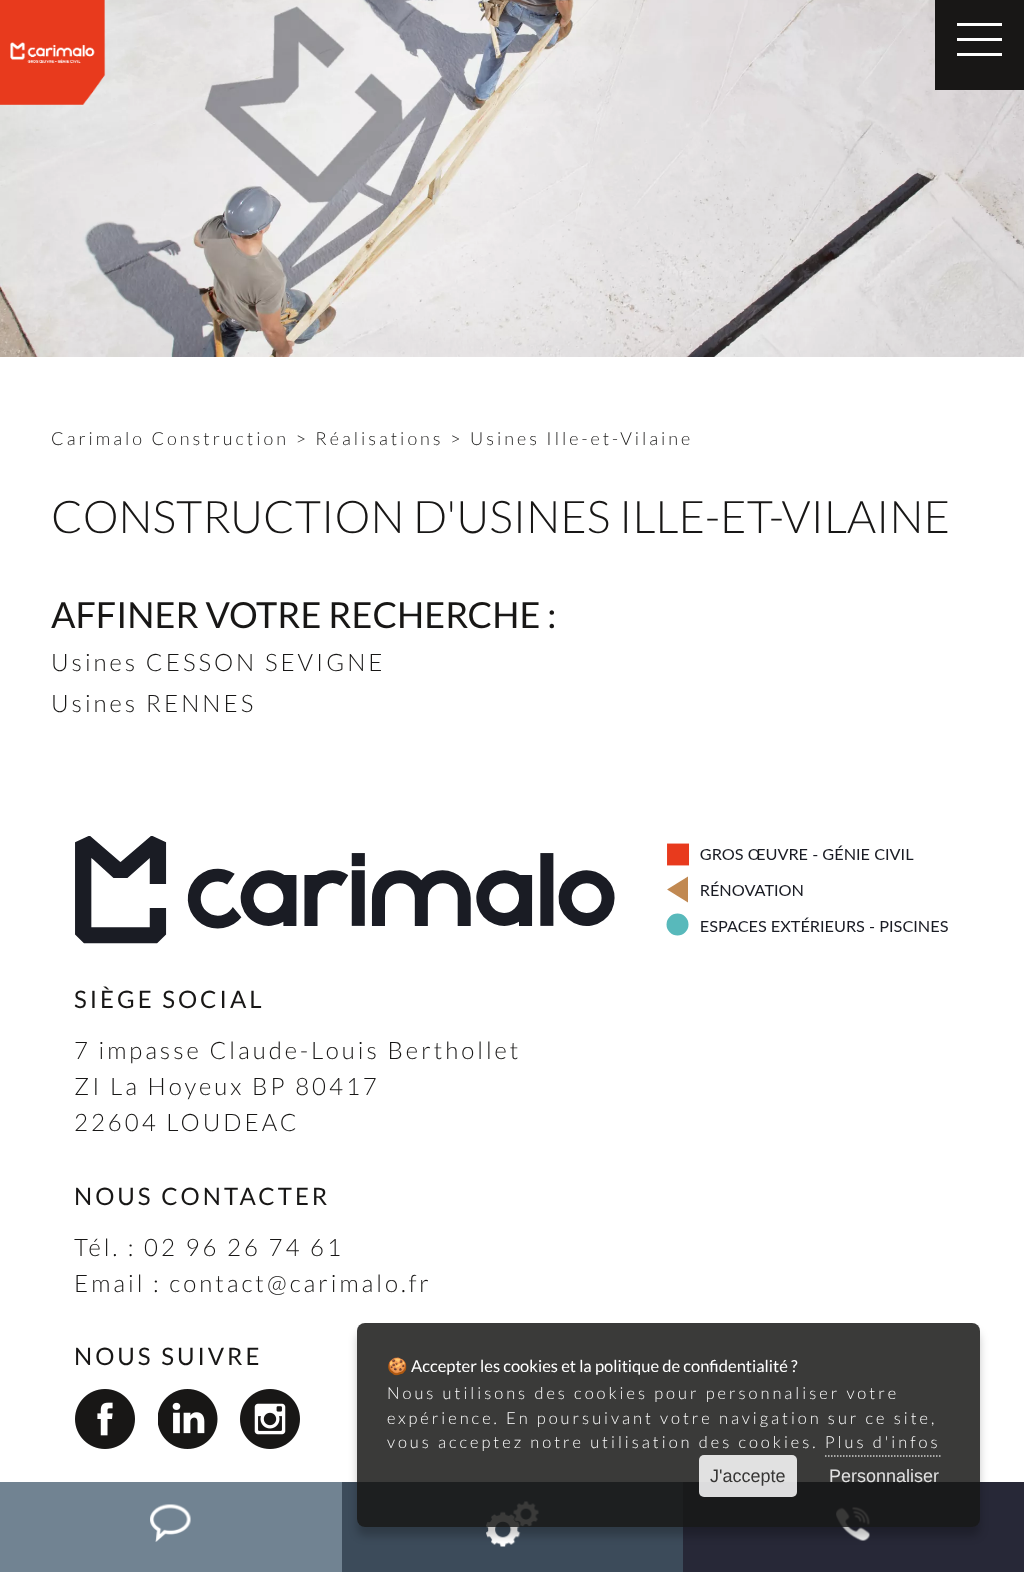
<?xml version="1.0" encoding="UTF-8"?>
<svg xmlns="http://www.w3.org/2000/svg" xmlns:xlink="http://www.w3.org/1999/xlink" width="1024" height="1572">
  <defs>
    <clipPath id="clip1"><path d="M 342 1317 h 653 v 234 h -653 z m 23 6 h 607 c 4.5 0 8 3.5 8 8 v 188 c 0 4.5 -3.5 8 -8 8 h -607 c -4.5 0 -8 -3.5 -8 -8 v -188 c 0 -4.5 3.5 -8 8 -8 z" clip-rule="evenodd" /></clipPath>
  </defs>
  <rect width="100%" height="100%" fill="#ffffff" />
  <image x="0" y="0" width="1024" height="357" xlink:href="image2.png" />
  <image x="0" y="0" width="106" height="105" xlink:href="image1.png" />
  <rect x="935" width="89" height="90" fill="#181716" />
  <rect x="957" y="38" width="45" height="3" fill="#ffffff" />
  <rect x="957" y="23" width="45" height="3" fill="#ffffff" />
  <rect x="957" y="53" width="45" height="3" fill="#ffffff" />
  <image x="75" y="836" width="873" height="108" xlink:href="image3.png" />
  <image x="75" y="1389" width="60" height="60" xlink:href="image4.png" />
  <image x="158" y="1389" width="60" height="60" xlink:href="image5.png" />
  <image x="240" y="1389" width="60" height="60" xlink:href="image6.png" />
  <rect y="1482" width="342" height="90" fill="#718392" />
  <image x="150" y="1504" width="41" height="38" xlink:href="image7.png" />
  <rect x="342" y="1482" width="341" height="90" fill="#3c4b5a" />
  <image x="486" y="1501" width="53" height="46" xlink:href="image8.png" />
  <rect x="683" y="1482" width="341" height="90" fill="#272837" />
  <image x="836" y="1507" width="34" height="34" xlink:href="image9.png" />
  <g clip-path="url(#clip1)">
    <rect x="357" y="1332" width="623" height="204" rx="8" fill="#000000" fill-opacity="0.21" filter="blur(4.5px)" />
  </g>
  <rect x="357" y="1323" width="623" height="204" rx="8" fill="#181716" fill-opacity="0.85" />
  <path d="M 825 1456 h 115.5" fill="none" stroke="#cececd" stroke-width="1.5" stroke-dasharray="1.5 1.5" />
  <rect x="699" y="1455" width="98" height="42" rx="5" fill="#ffffff" fill-opacity="0.85" />
  <text x="51" y="445" style="font-family: Lato; font-size: 18px; font-weight: 300; letter-spacing: 3px; fill: #181716">Carimalo Construction &gt; Réalisations &gt; Usines Ille-et-Vilaine</text>
  <text x="51" y="533" style="font-family: Lato; font-size: 45px; font-weight: 300; fill: #181716">CONSTRUCTION D'USINES ILLE-ET-VILAINE</text>
  <text x="51" y="628" style="font-family: Lato; font-size: 36px; fill: #181716">AFFINER VOTRE RECHERCHE :</text>
  <text x="51" y="671" style="font-family: Lato; font-size: 24px; font-weight: 300; letter-spacing: 3px; fill: #181716">Usines CESSON SEVIGNE</text>
  <text x="51" y="712" style="font-family: Lato; font-size: 24px; font-weight: 300; letter-spacing: 3px; fill: #181716">Usines RENNES</text>
  <text x="74" y="1008" style="font-family: Lato; font-size: 24px; letter-spacing: 3px; fill: #181716">SIÈGE SOCIAL</text>
  <text x="74" y="1059" style="font-family: Lato; font-size: 24px; font-weight: 300; letter-spacing: 3px; fill: #181716">7 impasse Claude-Louis Berthollet</text>
  <text x="74" y="1095" style="font-family: Lato; font-size: 24px; font-weight: 300; letter-spacing: 3px; fill: #181716">ZI La Hoyeux BP 80417</text>
  <text x="74" y="1131" style="font-family: Lato; font-size: 24px; font-weight: 300; letter-spacing: 3px; fill: #181716">22604 LOUDEAC</text>
  <text x="74" y="1205" style="font-family: Lato; font-size: 24px; letter-spacing: 3px; fill: #181716">NOUS CONTACTER</text>
  <text x="74" y="1256" style="font-family: Lato; font-size: 24px; font-weight: 300; letter-spacing: 3px; fill: #181716">Tél. : 02 96 26 74 61</text>
  <text x="74" y="1292" style="font-family: Lato; font-size: 24px; font-weight: 300; letter-spacing: 3px; fill: #181716">Email : contact@carimalo.fr</text>
  <text x="74" y="1365" style="font-family: Lato; font-size: 24px; letter-spacing: 3px; fill: #181716">NOUS SUIVRE</text>
  <text x="387" y="1372" style="font-family: Noto Color Emoji; font-size: 16.5px; fill: #ffffff">🍪</text>
  <text x="411" y="1372" style="font-family: Lato; font-size: 16.5px; fill: #ffffff">Accepter les cookies et la politique de confidentialité ?</text>
  <text x="387" y="1399" style="font-family: Lato; font-size: 16.5px; font-weight: 300; letter-spacing: 3px; fill: #ffffff">Nous utilisons des cookies pour personnaliser votre</text>
  <text x="387" y="1424" style="font-family: Lato; font-size: 16.5px; font-weight: 300; letter-spacing: 3px; fill: #ffffff">expérience. En poursuivant votre navigation sur ce site,</text>
  <text x="387" y="1448" style="font-family: Lato; font-size: 16.5px; font-weight: 300; letter-spacing: 3px; fill: #ffffff">vous acceptez notre utilisation des cookies. Plus d'infos</text>
  <text x="710" y="1482" style="font-family: Liberation Sans; font-size: 18px; fill: #373635">J'accepte</text>
  <text x="829" y="1482" style="font-family: Liberation Sans; font-size: 18px; fill: #e1e1e1">Personnaliser</text>
</svg>
